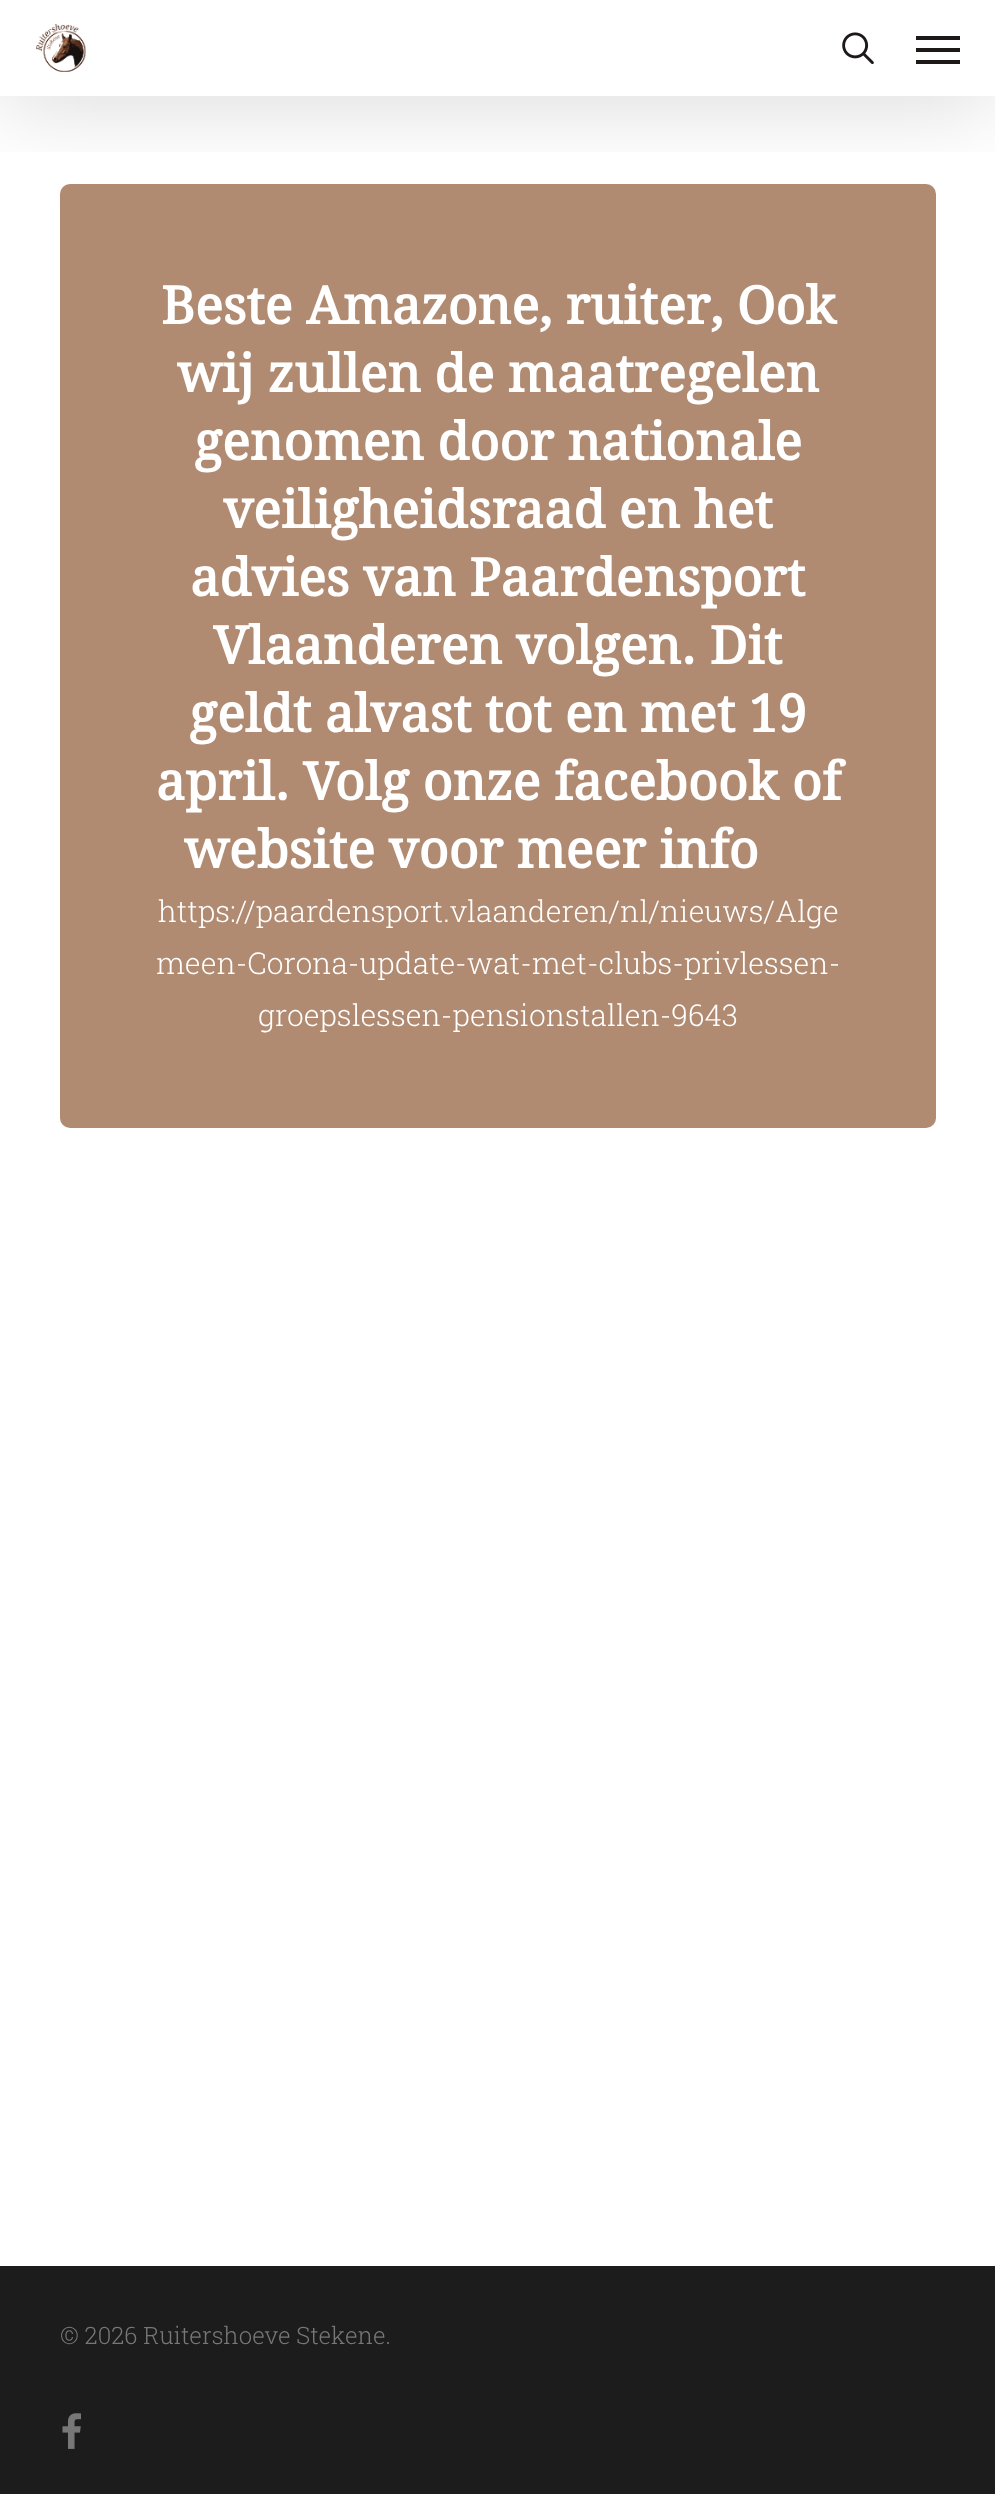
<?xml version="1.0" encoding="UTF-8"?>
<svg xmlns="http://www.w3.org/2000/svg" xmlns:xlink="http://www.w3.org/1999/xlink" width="995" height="2494">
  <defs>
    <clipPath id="clip1"><rect x="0" y="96" width="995" height="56" /></clipPath>
  </defs>
  <rect width="100%" height="100%" fill="#ffffff" />
  <rect x="60" y="184" width="876" height="944" rx="10" fill="#b08a71" />
  <g clip-path="url(#clip1)">
    <rect y="6" width="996" height="96" fill="#000000" fill-opacity="0.15" filter="blur(45px)" />
  </g>
  <image x="36" y="24" width="50" height="48" xlink:href="image1.png" />
  <image x="842" y="32" width="32" height="33" xlink:href="image2.png" />
  <rect x="916" y="36" width="44" height="4" fill="#1d1918" />
  <rect x="916" y="60" width="44" height="4" fill="#1d1918" />
  <rect x="916" y="48" width="44" height="4" fill="#1d1918" />
  <rect y="2266" width="995" height="228" fill="#1c1c1c" />
  <image x="62" y="2413" width="19" height="36" xlink:href="image3.png" />
  <text x="161" y="324" style="font-family: Droid Serif; font-size: 52px; font-weight: bold; fill: #ffffff">Beste Amazone, ruiter, Ook</text>
  <text x="177" y="392" style="font-family: Droid Serif; font-size: 52px; font-weight: bold; fill: #ffffff">wij zullen de maatregelen</text>
  <text x="194" y="460" style="font-family: Droid Serif; font-size: 52px; font-weight: bold; fill: #ffffff">genomen door nationale</text>
  <text x="223" y="528" style="font-family: Droid Serif; font-size: 52px; font-weight: bold; fill: #ffffff">veiligheidsraad en het</text>
  <text x="190" y="596" style="font-family: Droid Serif; font-size: 52px; font-weight: bold; fill: #ffffff">advies van Paardensport</text>
  <text x="213" y="664" style="font-family: Droid Serif; font-size: 52px; font-weight: bold; fill: #ffffff">Vlaanderen volgen. Dit</text>
  <text x="189" y="732" style="font-family: Droid Serif; font-size: 52px; font-weight: bold; fill: #ffffff">geldt alvast tot en met 19</text>
  <text x="156" y="800" style="font-family: Droid Serif; font-size: 52px; font-weight: bold; fill: #ffffff">april. Volg onze facebook of</text>
  <text x="184" y="868" style="font-family: Droid Serif; font-size: 52px; font-weight: bold; fill: #ffffff">website voor meer info</text>
  <text x="158" y="922" style="font-family: Roboto Slab; font-size: 30px; font-weight: 300; fill: #ffffff">https://paardensport.vlaanderen/nl/nieuws/Alge</text>
  <text x="156" y="974" style="font-family: Roboto Slab; font-size: 30px; font-weight: 300; fill: #ffffff">meen-Corona-update-wat-met-clubs-privlessen-</text>
  <text x="258" y="1026" style="font-family: Roboto Slab; font-size: 30px; font-weight: 300; fill: #ffffff">groepslessen-pensionstallen-9643</text>
  <text x="60" y="2344" style="font-family: Roboto Slab; font-size: 24px; font-weight: 300; fill: #777777">© 2026 Ruitershoeve Stekene.</text>
</svg>
